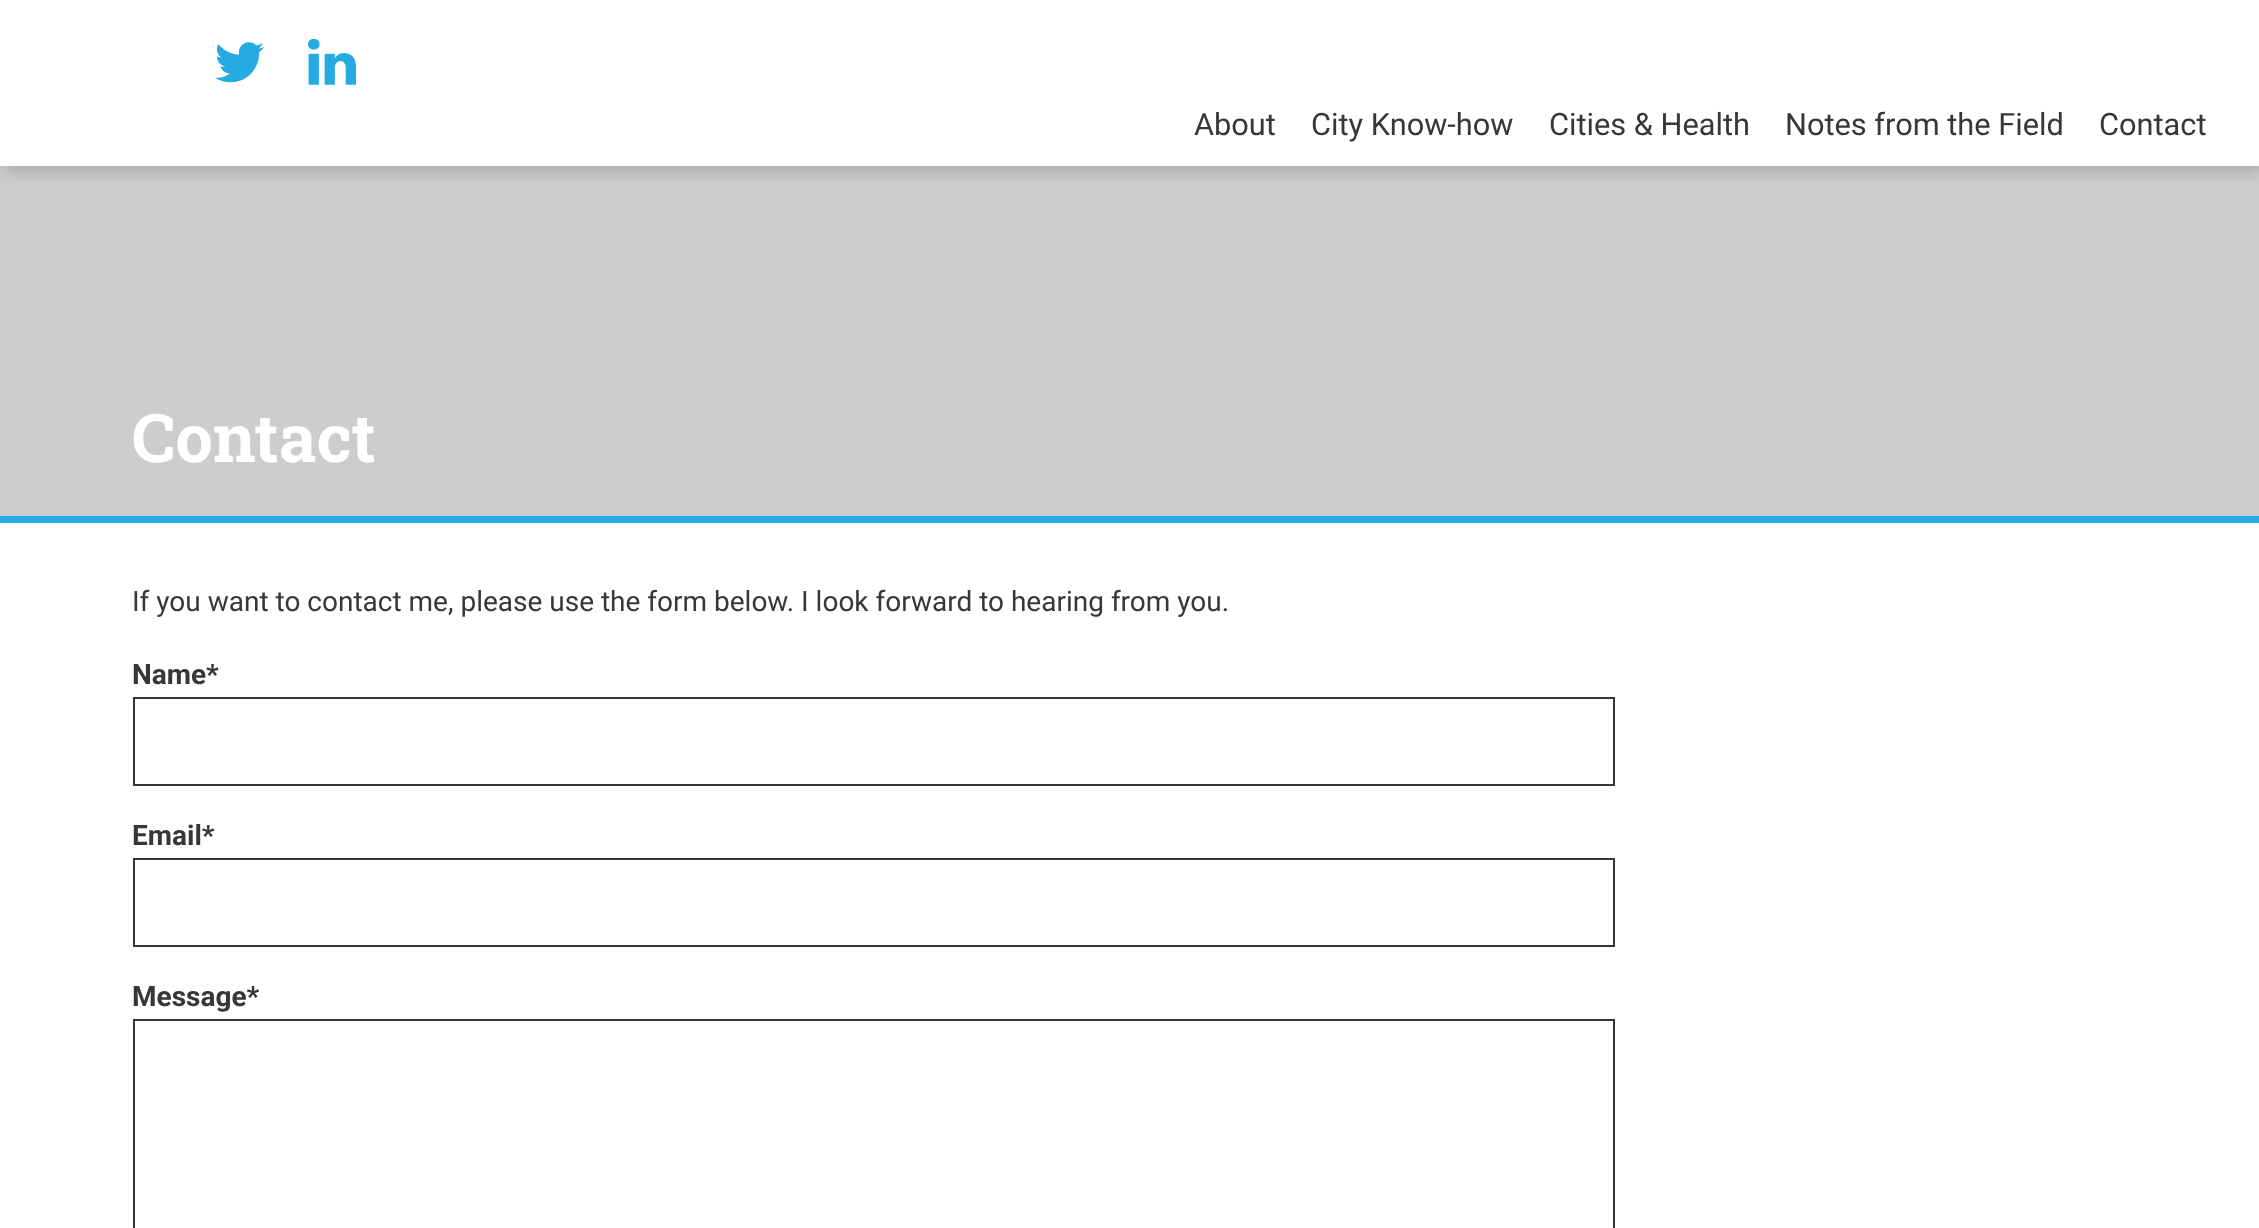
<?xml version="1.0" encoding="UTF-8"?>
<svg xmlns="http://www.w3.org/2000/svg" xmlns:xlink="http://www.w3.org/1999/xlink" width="2259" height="1228">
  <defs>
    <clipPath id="clip1"><rect x="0" y="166" width="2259" height="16" /></clipPath>
  </defs>
  <rect width="100%" height="100%" fill="#ffffff" />
  <rect y="166" width="2259" height="350" fill="#cdcdcd" />
  <g clip-path="url(#clip1)">
    <rect x="4" y="4" width="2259" height="166" fill="#000000" fill-opacity="0.2" filter="blur(9px)" />
  </g>
  <image x="215" y="42" width="49" height="41" xlink:href="image1.png" />
  <image x="308" y="38" width="48" height="47" xlink:href="image2.png" />
  <rect y="516" width="2259" height="7" fill="#25aae1" />
  <rect x="134" y="698" width="1480" height="87" fill="none" stroke="#373737" stroke-width="2" />
  <rect x="134" y="859" width="1480" height="87" fill="none" stroke="#373737" stroke-width="2" />
  <rect x="134" y="1020" width="1480" height="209" fill="none" stroke="#373737" stroke-width="2" />
  <text x="1194" y="135" style="font-family: Roboto; font-size: 30.75px; fill: #373737">About</text>
  <text x="1311" y="135" style="font-family: Roboto; font-size: 30.75px; fill: #373737">City Know-how</text>
  <text x="1549" y="135" style="font-family: Roboto; font-size: 30.75px; fill: #373737">Cities &amp; Health</text>
  <text x="1785" y="135" style="font-family: Roboto; font-size: 30.75px; fill: #373737">Notes from the Field</text>
  <text x="2099" y="135" style="font-family: Roboto; font-size: 30.75px; fill: #373737">Contact</text>
  <text x="132" y="462" style="font-family: Roboto Slab; font-size: 67px; font-weight: bold; fill: #ffffff">Contact</text>
  <text x="132" y="611" style="font-family: Roboto; font-size: 28px; fill: #373737">If you want to contact me, please use the form below. I look forward to hearing from you.</text>
  <text x="132" y="684" style="font-family: Roboto; font-size: 28px; font-weight: bold; fill: #373737">Name*</text>
  <text x="132" y="845" style="font-family: Roboto; font-size: 28px; font-weight: bold; fill: #373737">Email*</text>
  <text x="132" y="1006" style="font-family: Roboto; font-size: 28px; font-weight: bold; fill: #373737">Message*</text>
</svg>
